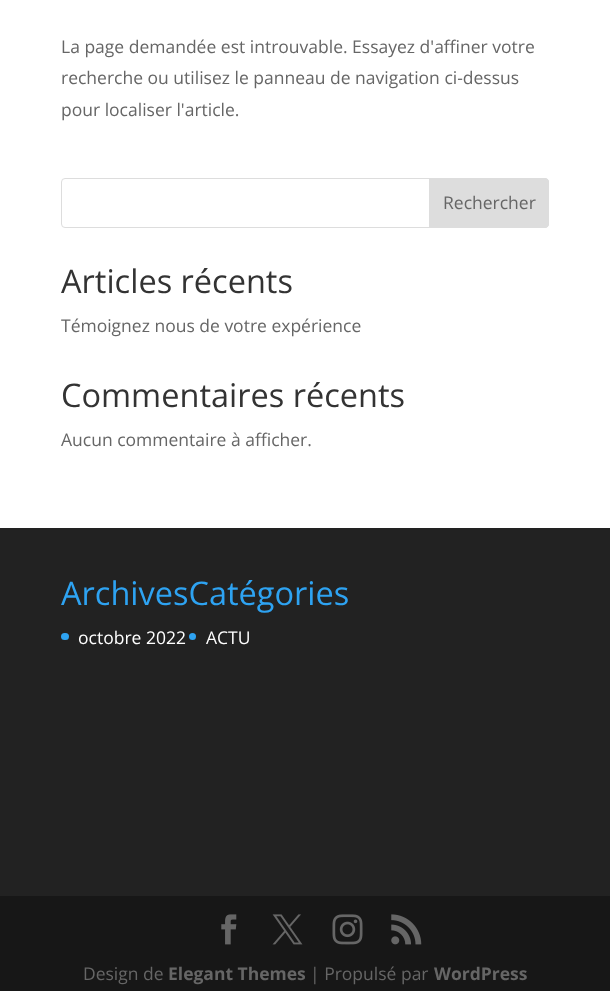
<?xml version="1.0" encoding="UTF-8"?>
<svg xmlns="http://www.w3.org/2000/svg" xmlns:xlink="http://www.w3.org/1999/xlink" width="610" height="991">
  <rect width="100%" height="100%" fill="#ffffff" />
  <rect x="61.5" y="178.5" width="487" height="49" rx="3.5" fill="none" stroke="#dddddd" />
  <path d="M 429.5 178.5 h 115.5 c 2 0 3.5 1.5 3.5 3.5 v 42 c 0 2 -1.5 3.5 -3.5 3.5 h -115.5 z" fill="#dddddd" stroke="#dddddd" />
  <rect y="528" width="610" height="368" fill="#222222" />
  <rect x="61" y="633" width="8" height="7" rx="3.5" fill="#2ea3f2" />
  <circle cx="192.5" cy="636.5" r="3.5" fill="#2ea3f2" />
  <rect y="896" width="610" height="95" fill="#171717" />
  <image x="221" y="914" width="16" height="31" xlink:href="image1.png" />
  <image x="272" y="914" width="31" height="31" xlink:href="image2.png" />
  <image x="332" y="914" width="31" height="31" xlink:href="image3.png" />
  <image x="391" y="914" width="31" height="31" xlink:href="image4.png" />
  <text x="61" y="53" style="font-family: Open Sans; font-size: 17.5px; fill: #666666">La page demandée est introuvable. Essayez d'affiner votre</text>
  <text x="61" y="84" style="font-family: Open Sans; font-size: 17.5px; fill: #666666">recherche ou utilisez le panneau de navigation ci-dessus</text>
  <text x="61" y="116" style="font-family: Open Sans; font-size: 17.5px; fill: #666666">pour localiser l'article.</text>
  <text x="443" y="209" style="font-family: Open Sans; font-size: 17.5px; fill: #666666">Rechercher</text>
  <text x="61" y="293" style="font-family: Open Sans; font-size: 32.5px; fill: #333333">Articles récents</text>
  <text x="61" y="332" style="font-family: Open Sans; font-size: 17.5px; fill: #666666">Témoignez nous de votre expérience</text>
  <text x="61" y="407" style="font-family: Open Sans; font-size: 32.5px; fill: #333333">Commentaires récents</text>
  <text x="61" y="446" style="font-family: Open Sans; font-size: 17.5px; fill: #666666">Aucun commentaire à afficher.</text>
  <text x="61" y="605" style="font-family: Open Sans; font-size: 32.5px; fill: #2ea3f2">ArchivesCatégories</text>
  <text x="78" y="644" style="font-family: Open Sans; font-size: 17.5px; fill: #ffffff">octobre 2022</text>
  <text x="206" y="644" style="font-family: Open Sans; font-size: 17.5px; fill: #ffffff">ACTU</text>
  <text x="83" y="980" style="font-family: Open Sans; font-size: 17.5px; fill: #666666">Design de</text>
  <text x="168" y="980" style="font-family: Open Sans; font-size: 17.5px; font-weight: bold; fill: #666666">Elegant Themes</text>
  <text x="310" y="980" style="font-family: Open Sans; font-size: 17.5px; fill: #666666">| Propulsé par</text>
  <text x="434" y="980" style="font-family: Open Sans; font-size: 17.5px; font-weight: bold; fill: #666666">WordPress</text>
</svg>
